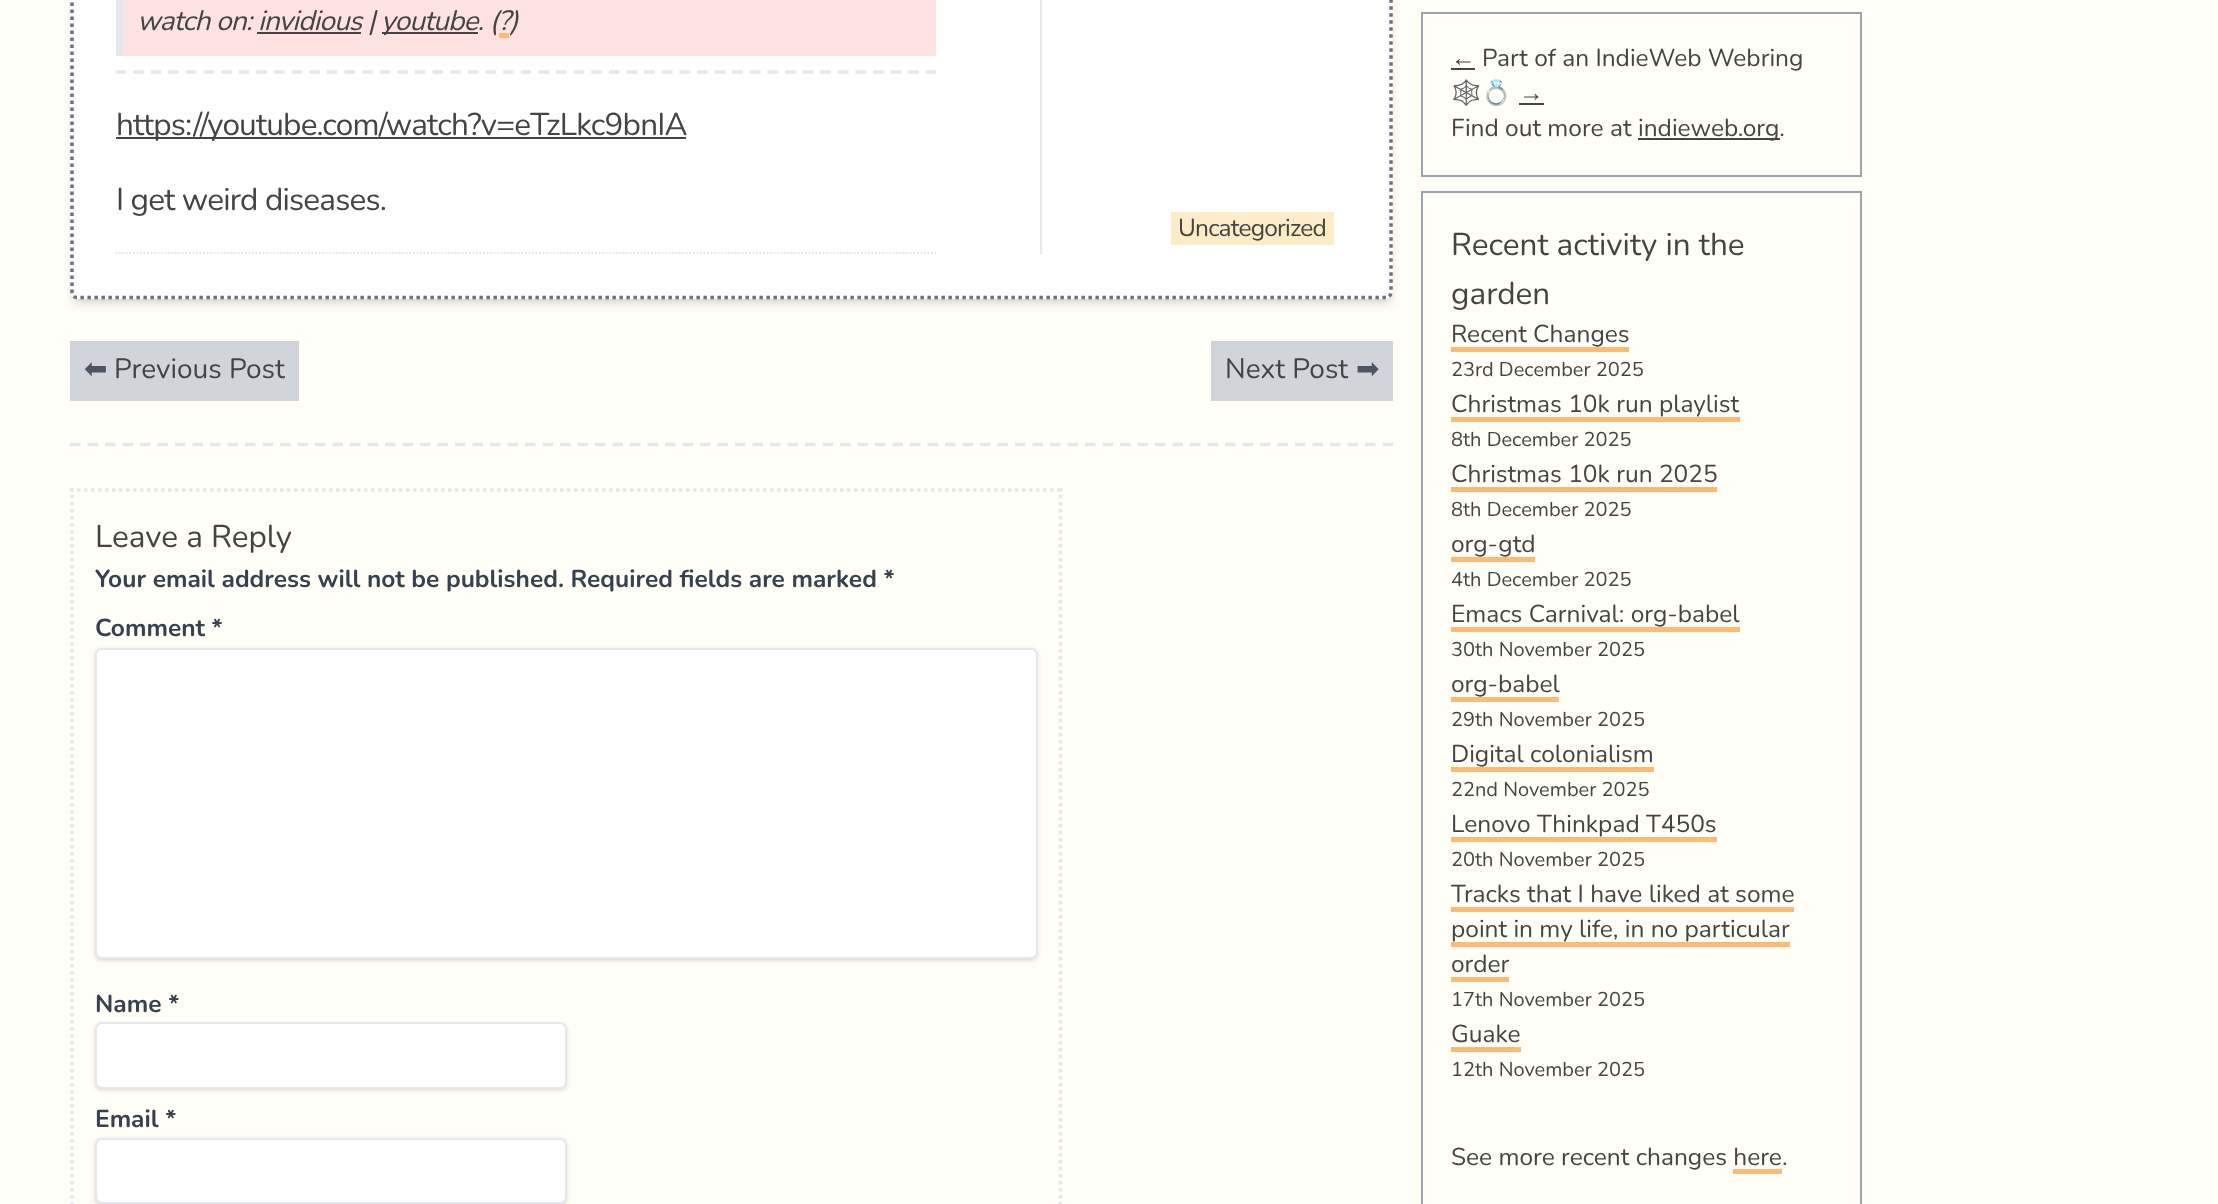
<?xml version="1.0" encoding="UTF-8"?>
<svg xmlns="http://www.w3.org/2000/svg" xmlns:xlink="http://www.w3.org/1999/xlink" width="2218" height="1204">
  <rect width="100%" height="100%" fill="#fffff8" />
  <rect x="74" y="-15" width="1316" height="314" rx="4" fill="#000000" fill-opacity="0.1" filter="blur(3.5px)" />
  <rect x="72" y="-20" width="1319" height="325" rx="5" fill="#000000" fill-opacity="0.1" filter="blur(5px)" />
  <rect x="70" y="-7" width="1323" height="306" rx="7" fill="#ffffff" />
  <path d="M 77 -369 h 1309 c 3 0 5 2 5 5 v 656 c 0 3 -2 5.5 -5 5.5 h -1309 c -3 0 -5 -2.5 -5 -5.5 v -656 c 0 -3 2 -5 5 -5 z" fill="none" stroke="#6b7280" stroke-width="3.5" stroke-dasharray="3.5 3.5" />
  <path d="M 115.5 72 h 820.5" fill="none" stroke="#e5e7eb" stroke-width="3.5" stroke-dasharray="10.5 7.12" />
  <rect x="123" width="813" height="56" fill="#fee2e2" />
  <rect x="116" width="7" height="56" fill="#e5e7eb" />
  <rect x="382" y="32" width="96" height="2" fill="#444444" />
  <rect x="257" y="32" width="104" height="2" fill="#444444" />
  <rect x="116" y="137" width="570" height="2" fill="#444444" />
  <path d="M 115.5 253 h 820.5" fill="none" stroke="#e5e7eb" stroke-width="1.8" stroke-dasharray="1.75 1.75" />
  <rect x="1040" width="2" height="254" fill="#e5e7eb" />
  <rect x="1171" y="212" width="163" height="33" fill="#feebc8" />
  <rect x="70" y="341" width="229" height="60" fill="#d1d5db" />
  <rect x="1211" y="341" width="182" height="60" fill="#d1d5db" />
  <path d="M 70 444.5 h 1323" fill="none" stroke="#e5e7eb" stroke-width="3.5" stroke-dasharray="10.5 7" />
  <path d="M 70 490 h 992" fill="none" stroke="#e5e7eb" stroke-width="3.5" stroke-dasharray="3.5 3.5" />
  <path d="M 1060.5 488 v 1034.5" fill="none" stroke="#e5e7eb" stroke-width="3.5" stroke-dasharray="3.5 3.5" />
  <path d="M 72 488 v 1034.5" fill="none" stroke="#e5e7eb" stroke-width="3.5" stroke-dasharray="3.5 3.5" />
  <rect x="96" y="651" width="940" height="308" rx="5" fill="#000000" fill-opacity="0.1" filter="blur(2px)" />
  <rect x="95" y="649" width="943" height="312" rx="7" fill="#000000" fill-opacity="0.1" filter="blur(2.5px)" />
  <rect x="96" y="649" width="941" height="309" rx="6" fill="#ffffff" stroke="#e5e7eb" stroke-width="2" />
  <rect x="96" y="1026" width="469" height="63" rx="5" fill="#000000" fill-opacity="0.1" filter="blur(2px)" />
  <rect x="95" y="1024" width="472" height="66" rx="7" fill="#000000" fill-opacity="0.1" filter="blur(2.5px)" />
  <rect x="96" y="1023" width="470" height="65" rx="6" fill="#ffffff" stroke="#e5e7eb" stroke-width="2" />
  <rect x="96" y="1141" width="469" height="63" rx="5" fill="#000000" fill-opacity="0.1" filter="blur(2px)" />
  <rect x="95" y="1139" width="472" height="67" rx="7" fill="#000000" fill-opacity="0.1" filter="blur(2.5px)" />
  <rect x="96" y="1139" width="470" height="64" rx="6" fill="#ffffff" stroke="#e5e7eb" stroke-width="2" />
  <rect x="1422" y="13" width="439" height="163" fill="none" stroke="#9ca3af" stroke-width="2" />
  <rect x="1451" y="68" width="24" height="2" fill="#444444" />
  <rect x="1519" y="103" width="25" height="2" fill="#444444" />
  <rect x="1638" y="138" width="142" height="2" fill="#444444" />
  <rect x="1422" y="192" width="439" height="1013" fill="none" stroke="#9ca3af" stroke-width="2" />
  <rect x="1451" y="347" width="178" height="5" fill="#fdba74" />
  <rect x="1451" y="417" width="289" height="5" fill="#fdba74" />
  <rect x="1451" y="487" width="266" height="5" fill="#fdba74" />
  <rect x="1451" y="557" width="84" height="5" fill="#fdba74" />
  <rect x="1451" y="627" width="289" height="5" fill="#fdba74" />
  <rect x="1451" y="697" width="108" height="5" fill="#fdba74" />
  <rect x="1451" y="767" width="203" height="5" fill="#fdba74" />
  <rect x="1451" y="837" width="266" height="5" fill="#fdba74" />
  <rect x="1451" y="907" width="343" height="5" fill="#fdba74" />
  <rect x="1451" y="942" width="339" height="5" fill="#fdba74" />
  <rect x="1451" y="977" width="58" height="5" fill="#fdba74" />
  <rect x="1451" y="1047" width="70" height="5" fill="#fdba74" />
  <text x="137" y="30" style="font-family: Nunito; font-size: 28px; font-style: italic; letter-spacing: -0.8px; fill: #444444">watch on: invidious |</text>
  <text x="381" y="30" style="font-family: Nunito; font-size: 28px; font-style: italic; letter-spacing: -0.8px; fill: #444444">youtube. (</text>
  <rect x="499" y="33" width="10" height="5" fill="#fdba74" />
  <text x="498" y="30" style="font-family: Nunito; font-size: 28px; font-style: italic; letter-spacing: -0.8px; fill: #444444">?)</text>
  <text x="116" y="135" style="font-family: Nunito; font-size: 31.5px; letter-spacing: -0.8px; fill: #444444">https://youtube.com/watch?v=eTzLkc9bnIA</text>
  <text x="116" y="210" style="font-family: Nunito; font-size: 31.5px; letter-spacing: -0.8px; fill: #444444">I get weird diseases.</text>
  <text x="1178" y="236" style="font-family: Nunito; font-size: 24.5px; letter-spacing: -0.8px; fill: #444444">Uncategorized</text>
  <text x="84" y="378" style="font-family: DejaVu Sans; font-size: 28px; fill: #4b5563">⬅</text>
  <text x="114" y="378" style="font-family: Nunito; font-size: 28px; fill: #444444">Previous Post</text>
  <text x="1225" y="378" style="font-family: Nunito; font-size: 28px; fill: #444444">Next Post</text>
  <text x="1356" y="378" style="font-family: DejaVu Sans; font-size: 28px; fill: #4b5563">➡</text>
  <text x="95" y="547" style="font-family: Nunito; font-size: 31.5px; fill: #444444">Leave a Reply</text>
  <text x="95" y="587" style="font-family: Nunito; font-size: 24.5px; font-weight: bold; fill: #374151">Your email address will not be published. Required fields are marked *</text>
  <text x="95" y="636" style="font-family: Nunito; font-size: 24.5px; font-weight: bold; fill: #374151">Comment *</text>
  <text x="95" y="1012" style="font-family: Nunito; font-size: 24.5px; font-weight: bold; fill: #374151">Name *</text>
  <text x="95" y="1127" style="font-family: Nunito; font-size: 24.5px; font-weight: bold; fill: #374151">Email *</text>
  <text x="1451" y="66" style="font-family: Liberation Sans; font-size: 24.5px; fill: #444444">←</text>
  <text x="1482" y="66" style="font-family: Nunito; font-size: 24.5px; fill: #444444">Part of an IndieWeb Webring</text>
  <text x="1451" y="101" style="font-family: Noto Color Emoji; font-size: 24.5px; fill: #444444">🕸💍</text>
  <text x="1519" y="101" style="font-family: Liberation Sans; font-size: 24.5px; fill: #444444">→</text>
  <text x="1451" y="136" style="font-family: Nunito; font-size: 24.5px; fill: #444444">Find out more at</text>
  <text x="1638" y="136" style="font-family: Nunito; font-size: 24.5px; fill: #444444">indieweb.org.</text>
  <text x="1451" y="255" style="font-family: Nunito; font-size: 31.5px; fill: #444444">Recent activity in the</text>
  <text x="1451" y="304" style="font-family: Nunito; font-size: 31.5px; fill: #444444">garden</text>
  <text x="1451" y="342" style="font-family: Nunito; font-size: 24.5px; fill: #444444">Recent Changes</text>
  <text x="1451" y="376" style="font-family: Nunito; font-size: 20px; fill: #444444">23rd December 2025</text>
  <text x="1451" y="412" style="font-family: Nunito; font-size: 24.5px; fill: #444444">Christmas 10k run playlist</text>
  <text x="1451" y="446" style="font-family: Nunito; font-size: 20px; fill: #444444">8th December 2025</text>
  <text x="1451" y="482" style="font-family: Nunito; font-size: 24.5px; fill: #444444">Christmas 10k run 2025</text>
  <text x="1451" y="516" style="font-family: Nunito; font-size: 20px; fill: #444444">8th December 2025</text>
  <text x="1451" y="552" style="font-family: Nunito; font-size: 24.5px; fill: #444444">org-gtd</text>
  <text x="1451" y="586" style="font-family: Nunito; font-size: 20px; fill: #444444">4th December 2025</text>
  <text x="1451" y="622" style="font-family: Nunito; font-size: 24.5px; fill: #444444">Emacs Carnival: org-babel</text>
  <text x="1451" y="656" style="font-family: Nunito; font-size: 20px; fill: #444444">30th November 2025</text>
  <text x="1451" y="692" style="font-family: Nunito; font-size: 24.5px; fill: #444444">org-babel</text>
  <text x="1451" y="726" style="font-family: Nunito; font-size: 20px; fill: #444444">29th November 2025</text>
  <text x="1451" y="762" style="font-family: Nunito; font-size: 24.5px; fill: #444444">Digital colonialism</text>
  <text x="1451" y="796" style="font-family: Nunito; font-size: 20px; fill: #444444">22nd November 2025</text>
  <text x="1451" y="832" style="font-family: Nunito; font-size: 24.5px; fill: #444444">Lenovo Thinkpad T450s</text>
  <text x="1451" y="866" style="font-family: Nunito; font-size: 20px; fill: #444444">20th November 2025</text>
  <text x="1451" y="902" style="font-family: Nunito; font-size: 24.5px; fill: #444444">Tracks that I have liked at some</text>
  <text x="1451" y="937" style="font-family: Nunito; font-size: 24.5px; fill: #444444">point in my life, in no particular</text>
  <text x="1451" y="972" style="font-family: Nunito; font-size: 24.5px; fill: #444444">order</text>
  <text x="1451" y="1006" style="font-family: Nunito; font-size: 20px; fill: #444444">17th November 2025</text>
  <text x="1451" y="1042" style="font-family: Nunito; font-size: 24.5px; fill: #444444">Guake</text>
  <text x="1451" y="1076" style="font-family: Nunito; font-size: 20px; fill: #444444">12th November 2025</text>
  <text x="1451" y="1165" style="font-family: Nunito; font-size: 24.5px; fill: #444444">See more recent changes here.</text>
  <rect x="1733" y="1169" width="49" height="5" fill="#fdba74" />
</svg>
